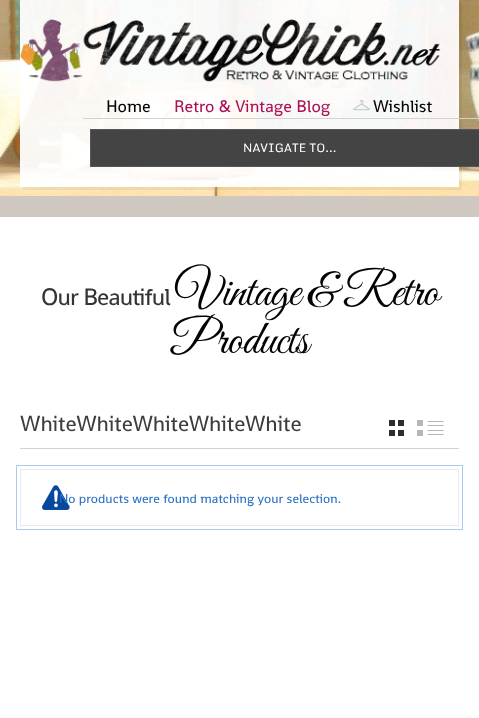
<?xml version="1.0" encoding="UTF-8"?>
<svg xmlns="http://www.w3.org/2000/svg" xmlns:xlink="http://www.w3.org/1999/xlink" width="479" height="718">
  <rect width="100%" height="100%" fill="#ffffff" />
  <rect y="196" width="479" height="21" fill="#cfc8c0" />
  <image x="0" y="0" width="479" height="196" xlink:href="image1.png" />
  <rect x="20" width="439" height="187" fill="#ffffff" fill-opacity="0.94" />
  <path d="M 23 187 v 3 h 439 v -187 h -3 v 184 z" fill="#000000" fill-opacity="0.05" />
  <image x="20" y="19" width="421" height="63" xlink:href="image2.png" />
  <image x="353" y="99" width="17" height="12" xlink:href="image3.png" />
  <rect x="83" y="118" width="396" height="1" fill="#d3d2d2" />
  <rect x="90.5" y="129.5" width="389" height="37" fill="#444444" stroke="#585757" />
  <rect x="20" y="448" width="439" height="1" fill="#d3d2d2" />
  <image x="389" y="420" width="15" height="16" xlink:href="image4.png" />
  <image x="417" y="420" width="27" height="16" xlink:href="image5.png" />
  <image x="42" y="485" width="28" height="25" xlink:href="image6.png" />
  <rect x="20.5" y="469.5" width="438" height="56" fill="none" stroke="#e0ebf8" />
  <rect x="16.5" y="465.5" width="446" height="64" fill="none" stroke="#abc9ed" />
  <text x="106" y="112" style="font-family: Shanti; font-size: 17px; fill: #030303">Home</text>
  <text x="174" y="112" style="font-family: Shanti; font-size: 17px; fill: #ac1159">Retro &amp; Vintage Blog</text>
  <text x="373" y="112" style="font-family: Shanti; font-size: 17px; fill: #030303">Wishlist</text>
  <text x="243" y="152" style="font-family: Monda; font-size: 12px; fill: #ffffff">NAVIGATE TO...</text>
  <text x="41" y="305" style="font-family: Shanti; font-size: 24px; letter-spacing: -0.9px; fill: #353333">Our Beautiful</text>
  <text x="175" y="305" style="font-family: Great Vibes; font-size: 48px; letter-spacing: -0.9px; fill: #030303">Vintage &amp; Retro</text>
  <text x="170" y="353" style="font-family: Great Vibes; font-size: 48px; letter-spacing: -0.9px; fill: #030303">Products</text>
  <text x="20" y="431" style="font-family: Shanti; font-size: 22px; fill: #3e3d3d">WhiteWhiteWhiteWhiteWhite</text>
  <text x="59" y="503" style="font-family: Shanti; font-size: 13px; fill: #2a6fc4">No products were found matching your selection.</text>
</svg>
